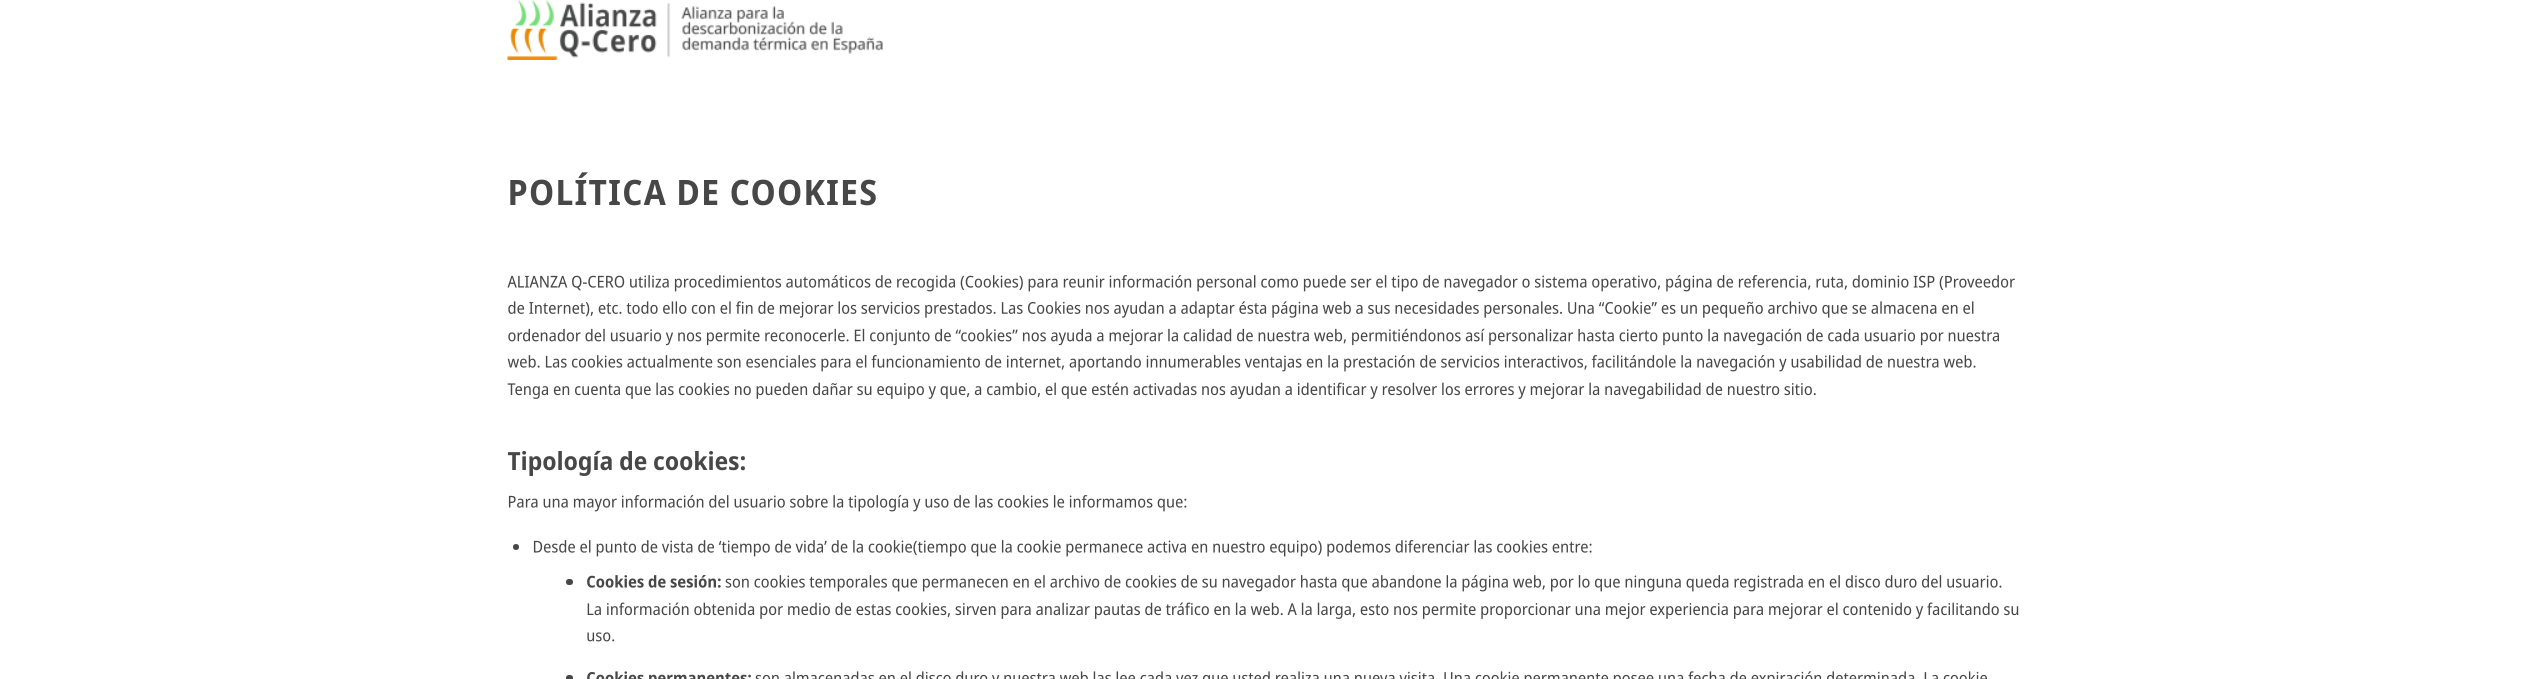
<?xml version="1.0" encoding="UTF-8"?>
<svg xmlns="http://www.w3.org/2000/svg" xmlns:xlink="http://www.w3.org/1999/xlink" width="2526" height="679">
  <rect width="100%" height="100%" fill="#ffffff" />
  <image x="507" y="0" width="376" height="60" xlink:href="image1.png" />
  <image x="510" y="172" width="366" height="34" xlink:href="image2.png" />
  <image x="507" y="275" width="1508" height="17" xlink:href="image3.png" />
  <image x="508" y="301" width="1466" height="17" xlink:href="image4.png" />
  <image x="508" y="328" width="1491" height="18" xlink:href="image5.png" />
  <image x="507" y="355" width="1469" height="17" xlink:href="image6.png" />
  <image x="507" y="382" width="1309" height="17" xlink:href="image7.png" />
  <image x="507" y="450" width="238" height="26" xlink:href="image8.png" />
  <image x="508" y="495" width="679" height="17" xlink:href="image9.png" />
  <circle cx="516" cy="547" r="3" fill="#474747" />
  <image x="533" y="540" width="1059" height="17" xlink:href="image10.png" />
  <rect x="566" y="579" width="7" height="6" rx="3" fill="#474747" />
  <image x="587" y="575" width="134" height="13" xlink:href="image11.png" />
  <image x="725" y="575" width="1277" height="17" xlink:href="image12.png" />
  <image x="587" y="602" width="1432" height="17" xlink:href="image13.png" />
  <image x="587" y="632" width="28" height="10" xlink:href="image14.png" />
  <rect x="566" y="675" width="7" height="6" rx="3" fill="#474747" />
  <image x="587" y="671" width="164" height="8" xlink:href="image15.png" />
  <image x="755" y="671" width="1232" height="8" xlink:href="image16.png" />
</svg>
